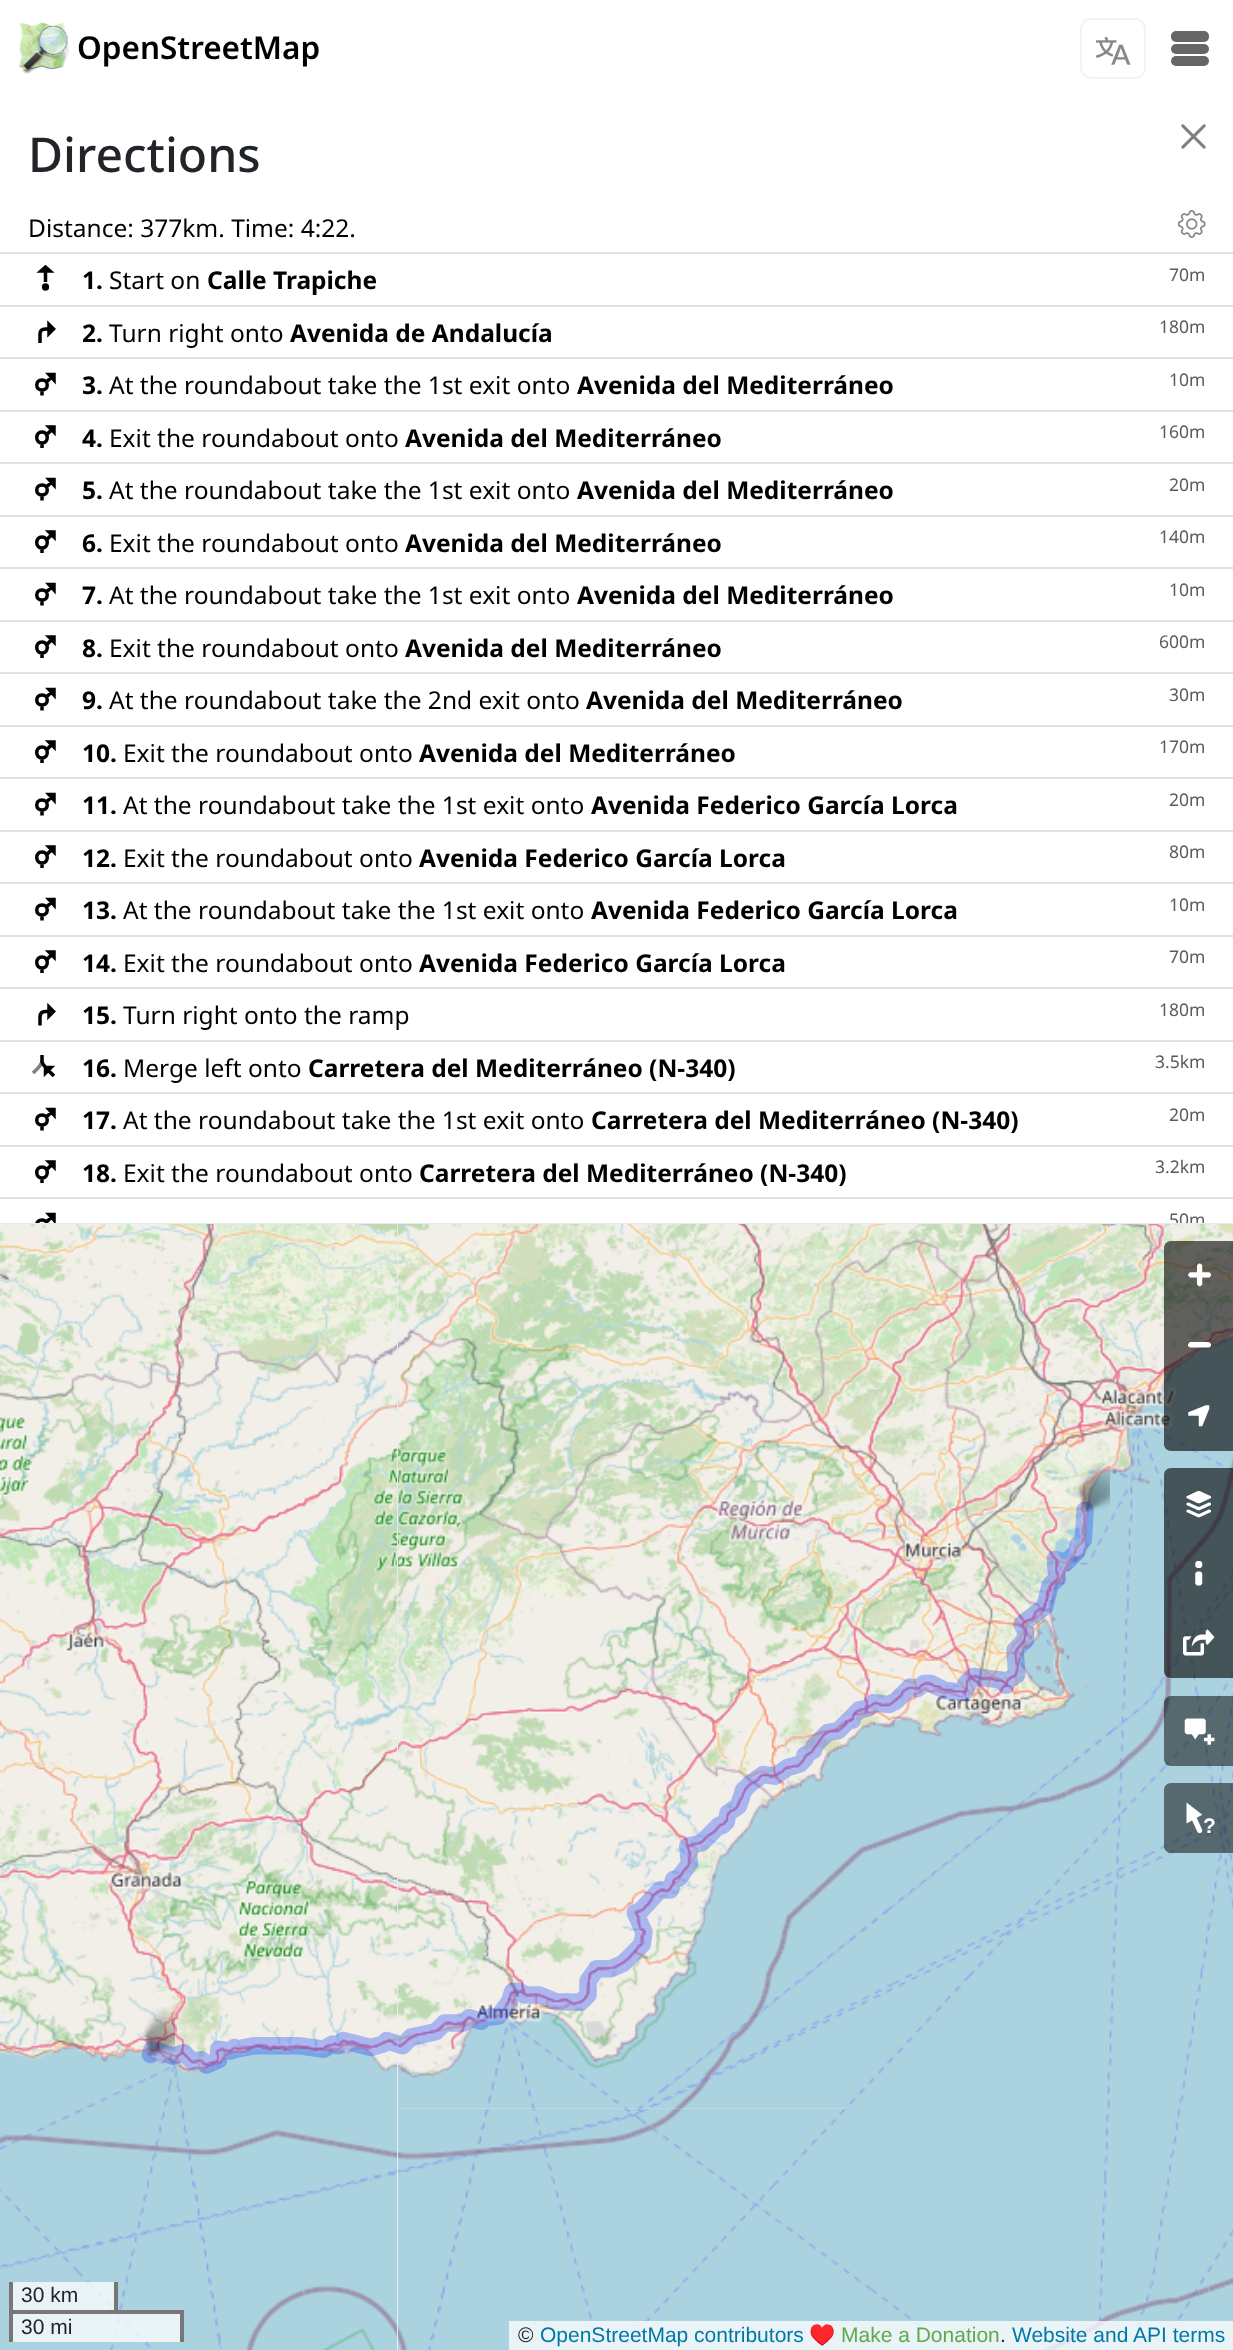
<?xml version="1.0" encoding="UTF-8"?>
<svg xmlns="http://www.w3.org/2000/svg" xmlns:xlink="http://www.w3.org/1999/xlink" width="1233" height="2350">
  <defs>
    <clipPath id="clip1"><rect x="28" y="1206" width="35" height="17" /></clipPath>
    <clipPath id="clip2"><rect y="96" width="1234" height="1127" /></clipPath>
  </defs>
  <rect width="100%" height="100%" fill="#ffffff" />
  <image x="18" y="23" width="51" height="51" xlink:href="image1.png" />
  <rect x="1081" y="19" width="64" height="59" rx="10" fill="none" stroke="#f3f3f3" stroke-width="2" />
  <image x="1096" y="36" width="35" height="29" xlink:href="image2.png" />
  <rect x="1171" y="31" width="38" height="11" rx="5" fill="#666666" />
  <rect x="1171" y="44" width="38" height="10" rx="5" fill="#666666" />
  <rect x="1171" y="56" width="38" height="10" rx="5" fill="#666666" />
  <image x="1181" y="124" width="25" height="25" xlink:href="image3.png" />
  <rect y="252" width="1233" height="2" fill="#dee2e6" />
  <image x="1177" y="210" width="29" height="28" xlink:href="image4.png" />
  <path d="M 45.5 289 c 2.5 0 2.5 -4 0 -4 c -2.5 0 -2.5 4 0 4 m 0 -7 v -14 m 4.5 3 l -4.5 -4 l -4.5 4 z" fill="none" stroke="#000000" stroke-width="3.5" />
  <rect y="305" width="1233" height="2" fill="#dee2e6" />
  <path d="M 40 343 v -9 c 0 -3 2 -5 5.5 -5 h 7 m -3.5 4.5 l 4.5 -4.5 l -4.5 -4.5 z" fill="none" stroke="#000000" stroke-width="3.5" />
  <rect y="357" width="1233" height="2" fill="#dee2e6" />
  <path d="M 42 395.5 v -5.5 c 7 0 7 -10 0 -10 c -7 0 -7 10 0 10 m 3.5 -7 l 8.5 -8.5 m 0 0 h -5 l 5 5.5 z" fill="none" stroke="#000000" stroke-width="3.5" />
  <rect y="410" width="1233" height="2" fill="#dee2e6" />
  <path d="M 42 448 v -5 c 7 0 7 -11 0 -11 c -7 0 -7 11 0 11 m 3.5 -7 l 8.5 -9 m 0 0 h -5 l 5 5 z" fill="none" stroke="#000000" stroke-width="3.5" />
  <rect y="462" width="1233" height="2" fill="#dee2e6" />
  <path d="M 42 500.5 v -5.5 c 7 0 7 -10 0 -10 c -7 0 -7 10 0 10 m 3.5 -7 l 8.5 -8.5 m 0 0 h -5 l 5 5.5 z" fill="none" stroke="#000000" stroke-width="3.5" />
  <rect y="515" width="1233" height="2" fill="#dee2e6" />
  <path d="M 42 553 v -5 c 7 0 7 -11 0 -11 c -7 0 -7 11 0 11 m 3.5 -7 l 8.5 -9 m 0 0 h -5 l 5 5 z" fill="none" stroke="#000000" stroke-width="3.5" />
  <rect y="567" width="1233" height="2" fill="#dee2e6" />
  <path d="M 42 605.5 v -5.5 c 7 0 7 -10 0 -10 c -7 0 -7 10 0 10 m 3.5 -7 l 8.5 -8.5 m 0 0 h -5 l 5 5.5 z" fill="none" stroke="#000000" stroke-width="3.5" />
  <rect y="620" width="1233" height="2" fill="#dee2e6" />
  <path d="M 42 658 v -5 c 7 0 7 -11 0 -11 c -7 0 -7 11 0 11 m 3.5 -7 l 8.5 -9 m 0 0 h -5 l 5 5 z" fill="none" stroke="#000000" stroke-width="3.5" />
  <rect y="672" width="1233" height="2" fill="#dee2e6" />
  <path d="M 42 710.5 v -5.5 c 7 0 7 -10 0 -10 c -7 0 -7 10 0 10 m 3.5 -7 l 8.5 -8.5 m 0 0 h -5 l 5 5.5 z" fill="none" stroke="#000000" stroke-width="3.5" />
  <rect y="725" width="1233" height="2" fill="#dee2e6" />
  <path d="M 42 763 v -5 c 7 0 7 -11 0 -11 c -7 0 -7 11 0 11 m 3.5 -7 l 8.5 -9 m 0 0 h -5 l 5 5 z" fill="none" stroke="#000000" stroke-width="3.5" />
  <rect y="777" width="1233" height="2" fill="#dee2e6" />
  <path d="M 42 815.5 v -5.5 c 7 0 7 -10 0 -10 c -7 0 -7 10 0 10 m 3.5 -7 l 8.5 -8.5 m 0 0 h -5 l 5 5.5 z" fill="none" stroke="#000000" stroke-width="3.5" />
  <rect y="830" width="1233" height="2" fill="#dee2e6" />
  <path d="M 42 868 v -5 c 7 0 7 -11 0 -11 c -7 0 -7 11 0 11 m 3.5 -7 l 8.5 -9 m 0 0 h -5 l 5 5 z" fill="none" stroke="#000000" stroke-width="3.5" />
  <rect y="882" width="1233" height="2" fill="#dee2e6" />
  <path d="M 42 920.5 v -5.5 c 7 0 7 -10 0 -10 c -7 0 -7 10 0 10 m 3.5 -7 l 8.5 -8.5 m 0 0 h -5 l 5 5.5 z" fill="none" stroke="#000000" stroke-width="3.5" />
  <rect y="935" width="1233" height="2" fill="#dee2e6" />
  <path d="M 42 973 v -5 c 7 0 7 -11 0 -11 c -7 0 -7 11 0 11 m 3.5 -7 l 8.5 -9 m 0 0 h -5 l 5 5 z" fill="none" stroke="#000000" stroke-width="3.5" />
  <rect y="987" width="1233" height="2" fill="#dee2e6" />
  <path d="M 40 1025.5 v -8.5 c 0 -4 2 -5.5 5.5 -5.5 h 7 m -3.5 4.5 l 4.5 -4.5 l -4.5 -4.5 z" fill="none" stroke="#000000" stroke-width="3.5" />
  <rect y="1040" width="1233" height="2" fill="#dee2e6" />
  <path d="M 42 1060.5 c 0 5 -5.5 9 -9 12.5" fill="none" stroke="#808080" stroke-width="3.5" />
  <path d="M 42 1055 v 7 c 1.5 4.5 9 11 12 14 m -8.5 -8.5 h 5.5 l -5.5 5.5 z" fill="none" stroke="#000000" stroke-width="3.5" />
  <rect y="1092" width="1233" height="2" fill="#dee2e6" />
  <path d="M 42 1130.5 v -5.5 c 7 0 7 -10 0 -10 c -7 0 -7 10 0 10 m 3.5 -7 l 8.5 -8.5 m 0 0 h -5 l 5 5.5 z" fill="none" stroke="#000000" stroke-width="3.5" />
  <rect y="1145" width="1233" height="2" fill="#dee2e6" />
  <path d="M 42 1183 v -5 c 7 0 7 -11 0 -11 c -7 0 -7 11 0 11 m 3.5 -7 l 8.5 -9 m 0 0 h -5 l 5 5 z" fill="none" stroke="#000000" stroke-width="3.5" />
  <rect y="1197" width="1233" height="2" fill="#dee2e6" />
  <g clip-path="url(#clip1)">
    <path d="M 42 1235.5 v -5.5 c 7 0 7 -10 0 -10 c -7 0 -7 10 0 10 m 3.5 -7 l 8.5 -8.5 m 0 0 h -5 l 5 5.5 z" fill="none" stroke="#000000" stroke-width="3.5" />
  </g>
  <rect y="1223" width="1233" height="1127" fill="#e9ecef" />
  <image x="0" y="1224" width="397" height="437" xlink:href="image5.png" />
  <image x="398" y="1224" width="447" height="437" xlink:href="image6.png" />
  <image x="845" y="1224" width="388" height="437" xlink:href="image7.png" />
  <image x="0" y="1661" width="397" height="448" xlink:href="image8.png" />
  <image x="398" y="1661" width="447" height="448" xlink:href="image9.png" />
  <image x="845" y="1661" width="388" height="448" xlink:href="image10.png" />
  <image x="0" y="2109" width="397" height="241" xlink:href="image11.png" />
  <image x="398" y="2109" width="447" height="241" xlink:href="image12.png" />
  <image x="845" y="2109" width="388" height="241" xlink:href="image13.png" />
  <image x="141" y="1501" width="953" height="573" xlink:href="image16.png" />
  <image x="1078" y="1463" width="32" height="49" xlink:href="image14.png" />
  <image x="143" y="2007" width="32" height="49" xlink:href="image15.png" />
  <path d="M 1171 1241 h 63 v 70 h -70 v -63 c 0 -4 3 -7 7 -7 z" fill="#000000" fill-opacity="0.6" />
  <image x="1188" y="1263" width="23" height="24" xlink:href="image17.png" />
  <rect x="1164" y="1311" width="69" height="70" fill="#000000" fill-opacity="0.6" />
  <path d="M 1188 1344 v 2 l 2 1.5 h 19 l 2 -1.5 v -2 l -2 -2 h -19 z" fill="#ffffff" />
  <path d="M 1164 1381 h 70 v 70 h -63 c -4 0 -7 -3 -7 -7 z" fill="#000000" fill-opacity="0.6" />
  <image x="1188" y="1405" width="22" height="22" xlink:href="image18.png" />
  <path d="M 1171 1468 h 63 v 70 h -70 v -63 c 0 -4 3 -7 7 -7 z" fill="#000000" fill-opacity="0.6" />
  <image x="1186" y="1491" width="25" height="27" xlink:href="image19.png" />
  <rect x="1164" y="1538" width="69" height="70" fill="#000000" fill-opacity="0.6" />
  <image x="1195" y="1561" width="8" height="25" xlink:href="image20.png" />
  <path d="M 1164 1608 h 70 v 70 h -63 c -4 0 -7 -3 -7 -7 z" fill="#000000" fill-opacity="0.6" />
  <image x="1183" y="1629" width="32" height="27" xlink:href="image21.png" />
  <path d="M 1171 1696 h 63 v 70 h -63 c -4 0 -7 -3 -7 -7 v -56 c 0 -4 3 -7 7 -7 z" fill="#000000" fill-opacity="0.5" />
  <image x="1184" y="1718" width="31" height="27" xlink:href="image22.png" />
  <path d="M 1171 1783 h 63 v 70 h -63 c -4 0 -7 -3 -7 -7 v -56 c 0 -4 3 -7 7 -7 z" fill="#000000" fill-opacity="0.5" />
  <image x="1186" y="1802" width="17" height="32" xlink:href="image23.png" />
  <rect x="13" y="2282" width="101" height="28" fill="#ffffff" fill-opacity="0.75" />
  <rect x="114" y="2282" width="4" height="32" fill="#777777" />
  <rect x="9" y="2282" width="4" height="32" fill="#777777" />
  <rect x="13" y="2314" width="167" height="28" fill="#ffffff" fill-opacity="0.75" />
  <rect x="9" y="2310" width="175" height="4" fill="#777777" />
  <rect x="180" y="2310" width="4" height="32" fill="#777777" />
  <rect x="9" y="2310" width="4" height="32" fill="#777777" />
  <rect x="509" y="2321" width="724" height="29" fill="#ffffff" fill-opacity="0.75" />
  <text x="77" y="59" style="font-family: Noto Sans; font-size: 31.5px; font-weight: 600; fill: #000000">OpenStreetMap</text>
  <text x="28" y="172" style="font-family: Noto Sans; font-size: 48px; font-weight: 500; fill: #212529">Directions</text>
  <text x="28" y="237" style="font-family: Noto Sans; font-size: 24.5px; fill: #000000">Distance: 377km. Time: 4:22.</text>
  <text x="82" y="289" style="font-family: Noto Sans; font-size: 24.5px; font-weight: bold; fill: #000000">1.</text>
  <text x="109" y="289" style="font-family: Noto Sans; font-size: 24.5px; fill: #000000">Start on</text>
  <text x="207" y="289" style="font-family: Noto Sans; font-size: 24.5px; font-weight: bold; fill: #000000">Calle Trapiche</text>
  <text x="1169" y="281" style="font-family: Noto Sans; font-size: 17.5px; fill: #595c5f">70m</text>
  <text x="82" y="342" style="font-family: Noto Sans; font-size: 24.5px; font-weight: bold; fill: #000000">2.</text>
  <text x="109" y="342" style="font-family: Noto Sans; font-size: 24.5px; fill: #000000">Turn right onto</text>
  <text x="290" y="342" style="font-family: Noto Sans; font-size: 24.5px; font-weight: bold; fill: #000000">Avenida de Andalucía</text>
  <text x="1159" y="333" style="font-family: Noto Sans; font-size: 17.5px; fill: #595c5f">180m</text>
  <text x="82" y="394" style="font-family: Noto Sans; font-size: 24.5px; font-weight: bold; fill: #000000">3.</text>
  <text x="109" y="394" style="font-family: Noto Sans; font-size: 24.5px; fill: #000000">At the roundabout take the 1st exit onto</text>
  <text x="577" y="394" style="font-family: Noto Sans; font-size: 24.5px; font-weight: bold; fill: #000000">Avenida del Mediterráneo</text>
  <text x="1169" y="386" style="font-family: Noto Sans; font-size: 17.5px; fill: #595c5f">10m</text>
  <text x="82" y="447" style="font-family: Noto Sans; font-size: 24.5px; font-weight: bold; fill: #000000">4.</text>
  <text x="109" y="447" style="font-family: Noto Sans; font-size: 24.5px; fill: #000000">Exit the roundabout onto</text>
  <text x="405" y="447" style="font-family: Noto Sans; font-size: 24.5px; font-weight: bold; fill: #000000">Avenida del Mediterráneo</text>
  <text x="1159" y="438" style="font-family: Noto Sans; font-size: 17.5px; fill: #595c5f">160m</text>
  <text x="82" y="499" style="font-family: Noto Sans; font-size: 24.5px; font-weight: bold; fill: #000000">5.</text>
  <text x="109" y="499" style="font-family: Noto Sans; font-size: 24.5px; fill: #000000">At the roundabout take the 1st exit onto</text>
  <text x="577" y="499" style="font-family: Noto Sans; font-size: 24.5px; font-weight: bold; fill: #000000">Avenida del Mediterráneo</text>
  <text x="1169" y="491" style="font-family: Noto Sans; font-size: 17.5px; fill: #595c5f">20m</text>
  <text x="82" y="552" style="font-family: Noto Sans; font-size: 24.5px; font-weight: bold; fill: #000000">6.</text>
  <text x="109" y="552" style="font-family: Noto Sans; font-size: 24.5px; fill: #000000">Exit the roundabout onto</text>
  <text x="405" y="552" style="font-family: Noto Sans; font-size: 24.5px; font-weight: bold; fill: #000000">Avenida del Mediterráneo</text>
  <text x="1159" y="543" style="font-family: Noto Sans; font-size: 17.5px; fill: #595c5f">140m</text>
  <text x="82" y="604" style="font-family: Noto Sans; font-size: 24.5px; font-weight: bold; fill: #000000">7.</text>
  <text x="109" y="604" style="font-family: Noto Sans; font-size: 24.5px; fill: #000000">At the roundabout take the 1st exit onto</text>
  <text x="577" y="604" style="font-family: Noto Sans; font-size: 24.5px; font-weight: bold; fill: #000000">Avenida del Mediterráneo</text>
  <text x="1169" y="596" style="font-family: Noto Sans; font-size: 17.5px; fill: #595c5f">10m</text>
  <text x="82" y="657" style="font-family: Noto Sans; font-size: 24.5px; font-weight: bold; fill: #000000">8.</text>
  <text x="109" y="657" style="font-family: Noto Sans; font-size: 24.5px; fill: #000000">Exit the roundabout onto</text>
  <text x="405" y="657" style="font-family: Noto Sans; font-size: 24.5px; font-weight: bold; fill: #000000">Avenida del Mediterráneo</text>
  <text x="1159" y="648" style="font-family: Noto Sans; font-size: 17.5px; fill: #595c5f">600m</text>
  <text x="82" y="709" style="font-family: Noto Sans; font-size: 24.5px; font-weight: bold; fill: #000000">9.</text>
  <text x="109" y="709" style="font-family: Noto Sans; font-size: 24.5px; fill: #000000">At the roundabout take the 2nd exit onto</text>
  <text x="586" y="709" style="font-family: Noto Sans; font-size: 24.5px; font-weight: bold; fill: #000000">Avenida del Mediterráneo</text>
  <text x="1169" y="701" style="font-family: Noto Sans; font-size: 17.5px; fill: #595c5f">30m</text>
  <text x="82" y="762" style="font-family: Noto Sans; font-size: 24.5px; font-weight: bold; fill: #000000">10.</text>
  <text x="123" y="762" style="font-family: Noto Sans; font-size: 24.5px; fill: #000000">Exit the roundabout onto</text>
  <text x="419" y="762" style="font-family: Noto Sans; font-size: 24.5px; font-weight: bold; fill: #000000">Avenida del Mediterráneo</text>
  <text x="1159" y="753" style="font-family: Noto Sans; font-size: 17.5px; fill: #595c5f">170m</text>
  <text x="82" y="814" style="font-family: Noto Sans; font-size: 24.5px; font-weight: bold; fill: #000000">11.</text>
  <text x="123" y="814" style="font-family: Noto Sans; font-size: 24.5px; fill: #000000">At the roundabout take the 1st exit onto</text>
  <text x="591" y="814" style="font-family: Noto Sans; font-size: 24.5px; font-weight: bold; fill: #000000">Avenida Federico García Lorca</text>
  <text x="1169" y="806" style="font-family: Noto Sans; font-size: 17.5px; fill: #595c5f">20m</text>
  <text x="82" y="867" style="font-family: Noto Sans; font-size: 24.5px; font-weight: bold; fill: #000000">12.</text>
  <text x="123" y="867" style="font-family: Noto Sans; font-size: 24.5px; fill: #000000">Exit the roundabout onto</text>
  <text x="419" y="867" style="font-family: Noto Sans; font-size: 24.5px; font-weight: bold; fill: #000000">Avenida Federico García Lorca</text>
  <text x="1169" y="858" style="font-family: Noto Sans; font-size: 17.5px; fill: #595c5f">80m</text>
  <text x="82" y="919" style="font-family: Noto Sans; font-size: 24.5px; font-weight: bold; fill: #000000">13.</text>
  <text x="123" y="919" style="font-family: Noto Sans; font-size: 24.5px; fill: #000000">At the roundabout take the 1st exit onto</text>
  <text x="591" y="919" style="font-family: Noto Sans; font-size: 24.5px; font-weight: bold; fill: #000000">Avenida Federico García Lorca</text>
  <text x="1169" y="911" style="font-family: Noto Sans; font-size: 17.5px; fill: #595c5f">10m</text>
  <text x="82" y="972" style="font-family: Noto Sans; font-size: 24.5px; font-weight: bold; fill: #000000">14.</text>
  <text x="123" y="972" style="font-family: Noto Sans; font-size: 24.5px; fill: #000000">Exit the roundabout onto</text>
  <text x="419" y="972" style="font-family: Noto Sans; font-size: 24.5px; font-weight: bold; fill: #000000">Avenida Federico García Lorca</text>
  <text x="1169" y="963" style="font-family: Noto Sans; font-size: 17.5px; fill: #595c5f">70m</text>
  <text x="82" y="1024" style="font-family: Noto Sans; font-size: 24.5px; font-weight: bold; fill: #000000">15.</text>
  <text x="123" y="1024" style="font-family: Noto Sans; font-size: 24.5px; fill: #000000">Turn right onto the ramp</text>
  <text x="1159" y="1016" style="font-family: Noto Sans; font-size: 17.5px; fill: #595c5f">180m</text>
  <text x="82" y="1077" style="font-family: Noto Sans; font-size: 24.5px; font-weight: bold; fill: #000000">16.</text>
  <text x="123" y="1077" style="font-family: Noto Sans; font-size: 24.5px; fill: #000000">Merge left onto</text>
  <text x="308" y="1077" style="font-family: Noto Sans; font-size: 24.5px; font-weight: bold; fill: #000000">Carretera del Mediterráneo (N-340)</text>
  <text x="1155" y="1068" style="font-family: Noto Sans; font-size: 17.5px; fill: #595c5f">3.5km</text>
  <text x="82" y="1129" style="font-family: Noto Sans; font-size: 24.5px; font-weight: bold; fill: #000000">17.</text>
  <text x="123" y="1129" style="font-family: Noto Sans; font-size: 24.5px; fill: #000000">At the roundabout take the 1st exit onto</text>
  <text x="591" y="1129" style="font-family: Noto Sans; font-size: 24.5px; font-weight: bold; fill: #000000">Carretera del Mediterráneo (N-340)</text>
  <text x="1169" y="1121" style="font-family: Noto Sans; font-size: 17.5px; fill: #595c5f">20m</text>
  <text x="82" y="1182" style="font-family: Noto Sans; font-size: 24.5px; font-weight: bold; fill: #000000">18.</text>
  <text x="123" y="1182" style="font-family: Noto Sans; font-size: 24.5px; fill: #000000">Exit the roundabout onto</text>
  <text x="419" y="1182" style="font-family: Noto Sans; font-size: 24.5px; font-weight: bold; fill: #000000">Carretera del Mediterráneo (N-340)</text>
  <text x="1155" y="1173" style="font-family: Noto Sans; font-size: 17.5px; fill: #595c5f">3.2km</text>
  <g clip-path="url(#clip2)">
    <text x="1169" y="1226" style="font-family: Noto Sans; font-size: 17.5px; fill: #595c5f">50m</text>
  </g>
  <text x="1203" y="1833" style="font-family: Liberation Sans; font-size: 21px; font-weight: bold; fill: #ffffff">?</text>
  <text x="21" y="2302" style="font-family: Liberation Sans; font-size: 21px; fill: #212529">30 km</text>
  <text x="21" y="2334" style="font-family: Liberation Sans; font-size: 21px; fill: #212529">30 mi</text>
  <text x="518" y="2342" style="font-family: Liberation Sans; font-size: 21px; fill: #212529">©</text>
  <text x="540" y="2342" style="font-family: Liberation Sans; font-size: 21px; fill: #0078a8">OpenStreetMap contributors</text>
  <text x="809" y="2342" style="font-family: Noto Color Emoji; font-size: 21px; fill: #212529">♥️</text>
  <text x="841" y="2342" style="font-family: Liberation Sans; font-size: 21px; fill: #60a94f">Make a Donation</text>
  <text x="1000" y="2342" style="font-family: Liberation Sans; font-size: 21px; fill: #212529">.</text>
  <text x="1012" y="2342" style="font-family: Liberation Sans; font-size: 21px; fill: #0078a8">Website and API terms</text>
</svg>
